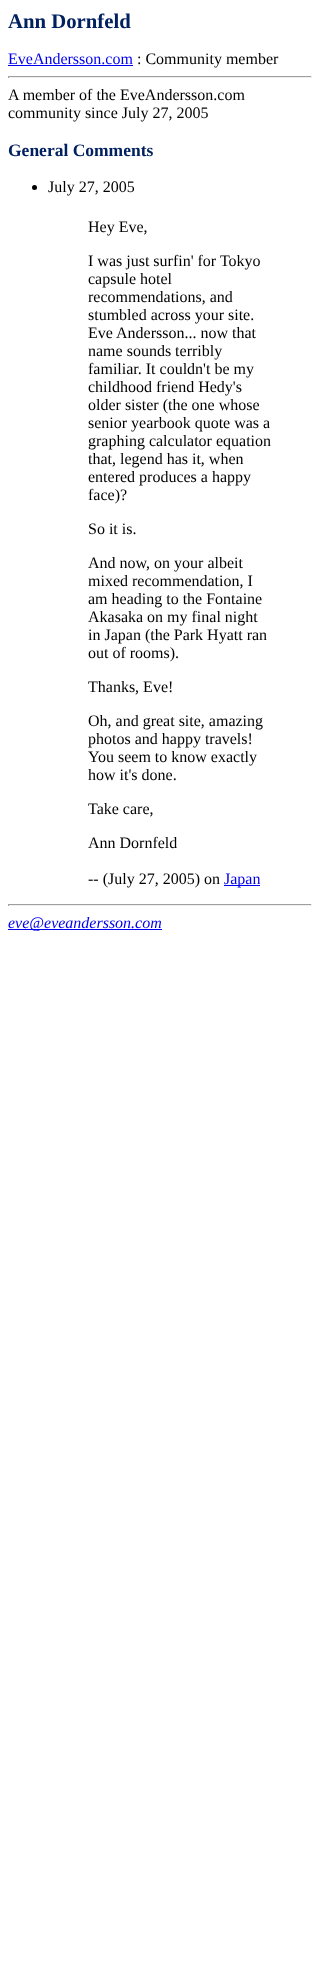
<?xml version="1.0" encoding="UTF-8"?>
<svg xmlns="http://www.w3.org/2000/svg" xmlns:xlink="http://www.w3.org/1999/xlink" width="320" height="1979">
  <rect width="100%" height="100%" fill="#ffffff" />
  <rect x="8" y="65" width="125" height="1" fill="#0000ee" />
  <rect x="8" y="76" width="304" height="1" fill="#9f9f9f" />
  <rect x="311" y="76" width="1" height="2" fill="#eeeeee" />
  <rect x="8" y="77" width="304" height="1" fill="#eeeeee" />
  <rect x="8" y="76" width="1" height="2" fill="#9f9f9f" />
  <circle cx="34.5" cy="187.5" r="2.5" fill="#000000" />
  <rect x="224" y="885" width="36" height="1" fill="#0000ee" />
  <rect x="8" y="904" width="304" height="1" fill="#9f9f9f" />
  <rect x="311" y="904" width="1" height="2" fill="#eeeeee" />
  <rect x="8" y="905" width="304" height="1" fill="#eeeeee" />
  <rect x="8" y="904" width="1" height="2" fill="#9f9f9f" />
  <rect x="8" y="929" width="154" height="1" fill="#0000ee" />
  <text x="8" y="28" style="font-family: Liberation Serif; font-size: 20.75px; font-weight: bold; fill: #002060">Ann Dornfeld</text>
  <text x="8" y="64" style="font-family: Liberation Serif; font-size: 16px; fill: #0000ee">EveAndersson.com</text>
  <text x="137" y="64" style="font-family: Liberation Serif; font-size: 16px; fill: #000000">: Community member</text>
  <text x="8" y="100" style="font-family: Liberation Serif; font-size: 16px; fill: #000000">A member of the EveAndersson.com</text>
  <text x="8" y="118" style="font-family: Liberation Serif; font-size: 16px; fill: #000000">community since July 27, 2005</text>
  <text x="8" y="156" style="font-family: Liberation Serif; font-size: 17.5px; font-weight: bold; fill: #002060">General Comments</text>
  <text x="48" y="192" style="font-family: Liberation Serif; font-size: 16px; fill: #000000">July 27, 2005</text>
  <text x="88" y="232" style="font-family: Liberation Serif; font-size: 16px; fill: #000000">Hey Eve,</text>
  <text x="88" y="266" style="font-family: Liberation Serif; font-size: 16px; fill: #000000">I was just surfin' for Tokyo</text>
  <text x="88" y="284" style="font-family: Liberation Serif; font-size: 16px; fill: #000000">capsule hotel</text>
  <text x="88" y="302" style="font-family: Liberation Serif; font-size: 16px; fill: #000000">recommendations, and</text>
  <text x="88" y="320" style="font-family: Liberation Serif; font-size: 16px; fill: #000000">stumbled across your site.</text>
  <text x="88" y="338" style="font-family: Liberation Serif; font-size: 16px; fill: #000000">Eve Andersson... now that</text>
  <text x="88" y="356" style="font-family: Liberation Serif; font-size: 16px; fill: #000000">name sounds terribly</text>
  <text x="88" y="374" style="font-family: Liberation Serif; font-size: 16px; fill: #000000">familiar. It couldn't be my</text>
  <text x="88" y="392" style="font-family: Liberation Serif; font-size: 16px; fill: #000000">childhood friend Hedy's</text>
  <text x="88" y="410" style="font-family: Liberation Serif; font-size: 16px; fill: #000000">older sister (the one whose</text>
  <text x="88" y="428" style="font-family: Liberation Serif; font-size: 16px; fill: #000000">senior yearbook quote was a</text>
  <text x="88" y="446" style="font-family: Liberation Serif; font-size: 16px; fill: #000000">graphing calculator equation</text>
  <text x="88" y="464" style="font-family: Liberation Serif; font-size: 16px; fill: #000000">that, legend has it, when</text>
  <text x="88" y="482" style="font-family: Liberation Serif; font-size: 16px; fill: #000000">entered produces a happy</text>
  <text x="88" y="500" style="font-family: Liberation Serif; font-size: 16px; fill: #000000">face)?</text>
  <text x="88" y="534" style="font-family: Liberation Serif; font-size: 16px; fill: #000000">So it is.</text>
  <text x="88" y="568" style="font-family: Liberation Serif; font-size: 16px; fill: #000000">And now, on your albeit</text>
  <text x="88" y="586" style="font-family: Liberation Serif; font-size: 16px; fill: #000000">mixed recommendation, I</text>
  <text x="88" y="604" style="font-family: Liberation Serif; font-size: 16px; fill: #000000">am heading to the Fontaine</text>
  <text x="88" y="622" style="font-family: Liberation Serif; font-size: 16px; fill: #000000">Akasaka on my final night</text>
  <text x="88" y="640" style="font-family: Liberation Serif; font-size: 16px; fill: #000000">in Japan (the Park Hyatt ran</text>
  <text x="88" y="658" style="font-family: Liberation Serif; font-size: 16px; fill: #000000">out of rooms).</text>
  <text x="88" y="692" style="font-family: Liberation Serif; font-size: 16px; fill: #000000">Thanks, Eve!</text>
  <text x="88" y="726" style="font-family: Liberation Serif; font-size: 16px; fill: #000000">Oh, and great site, amazing</text>
  <text x="88" y="744" style="font-family: Liberation Serif; font-size: 16px; fill: #000000">photos and happy travels!</text>
  <text x="88" y="762" style="font-family: Liberation Serif; font-size: 16px; fill: #000000">You seem to know exactly</text>
  <text x="88" y="780" style="font-family: Liberation Serif; font-size: 16px; fill: #000000">how it's done.</text>
  <text x="88" y="814" style="font-family: Liberation Serif; font-size: 16px; fill: #000000">Take care,</text>
  <text x="88" y="848" style="font-family: Liberation Serif; font-size: 16px; fill: #000000">Ann Dornfeld</text>
  <text x="88" y="884" style="font-family: Liberation Serif; font-size: 16px; fill: #000000">-- (July 27, 2005) on</text>
  <text x="224" y="884" style="font-family: Liberation Serif; font-size: 16px; fill: #0000ee">Japan</text>
  <text x="8" y="928" style="font-family: Liberation Serif; font-size: 16px; font-style: italic; fill: #0000ee">eve@eveandersson.com</text>
</svg>
